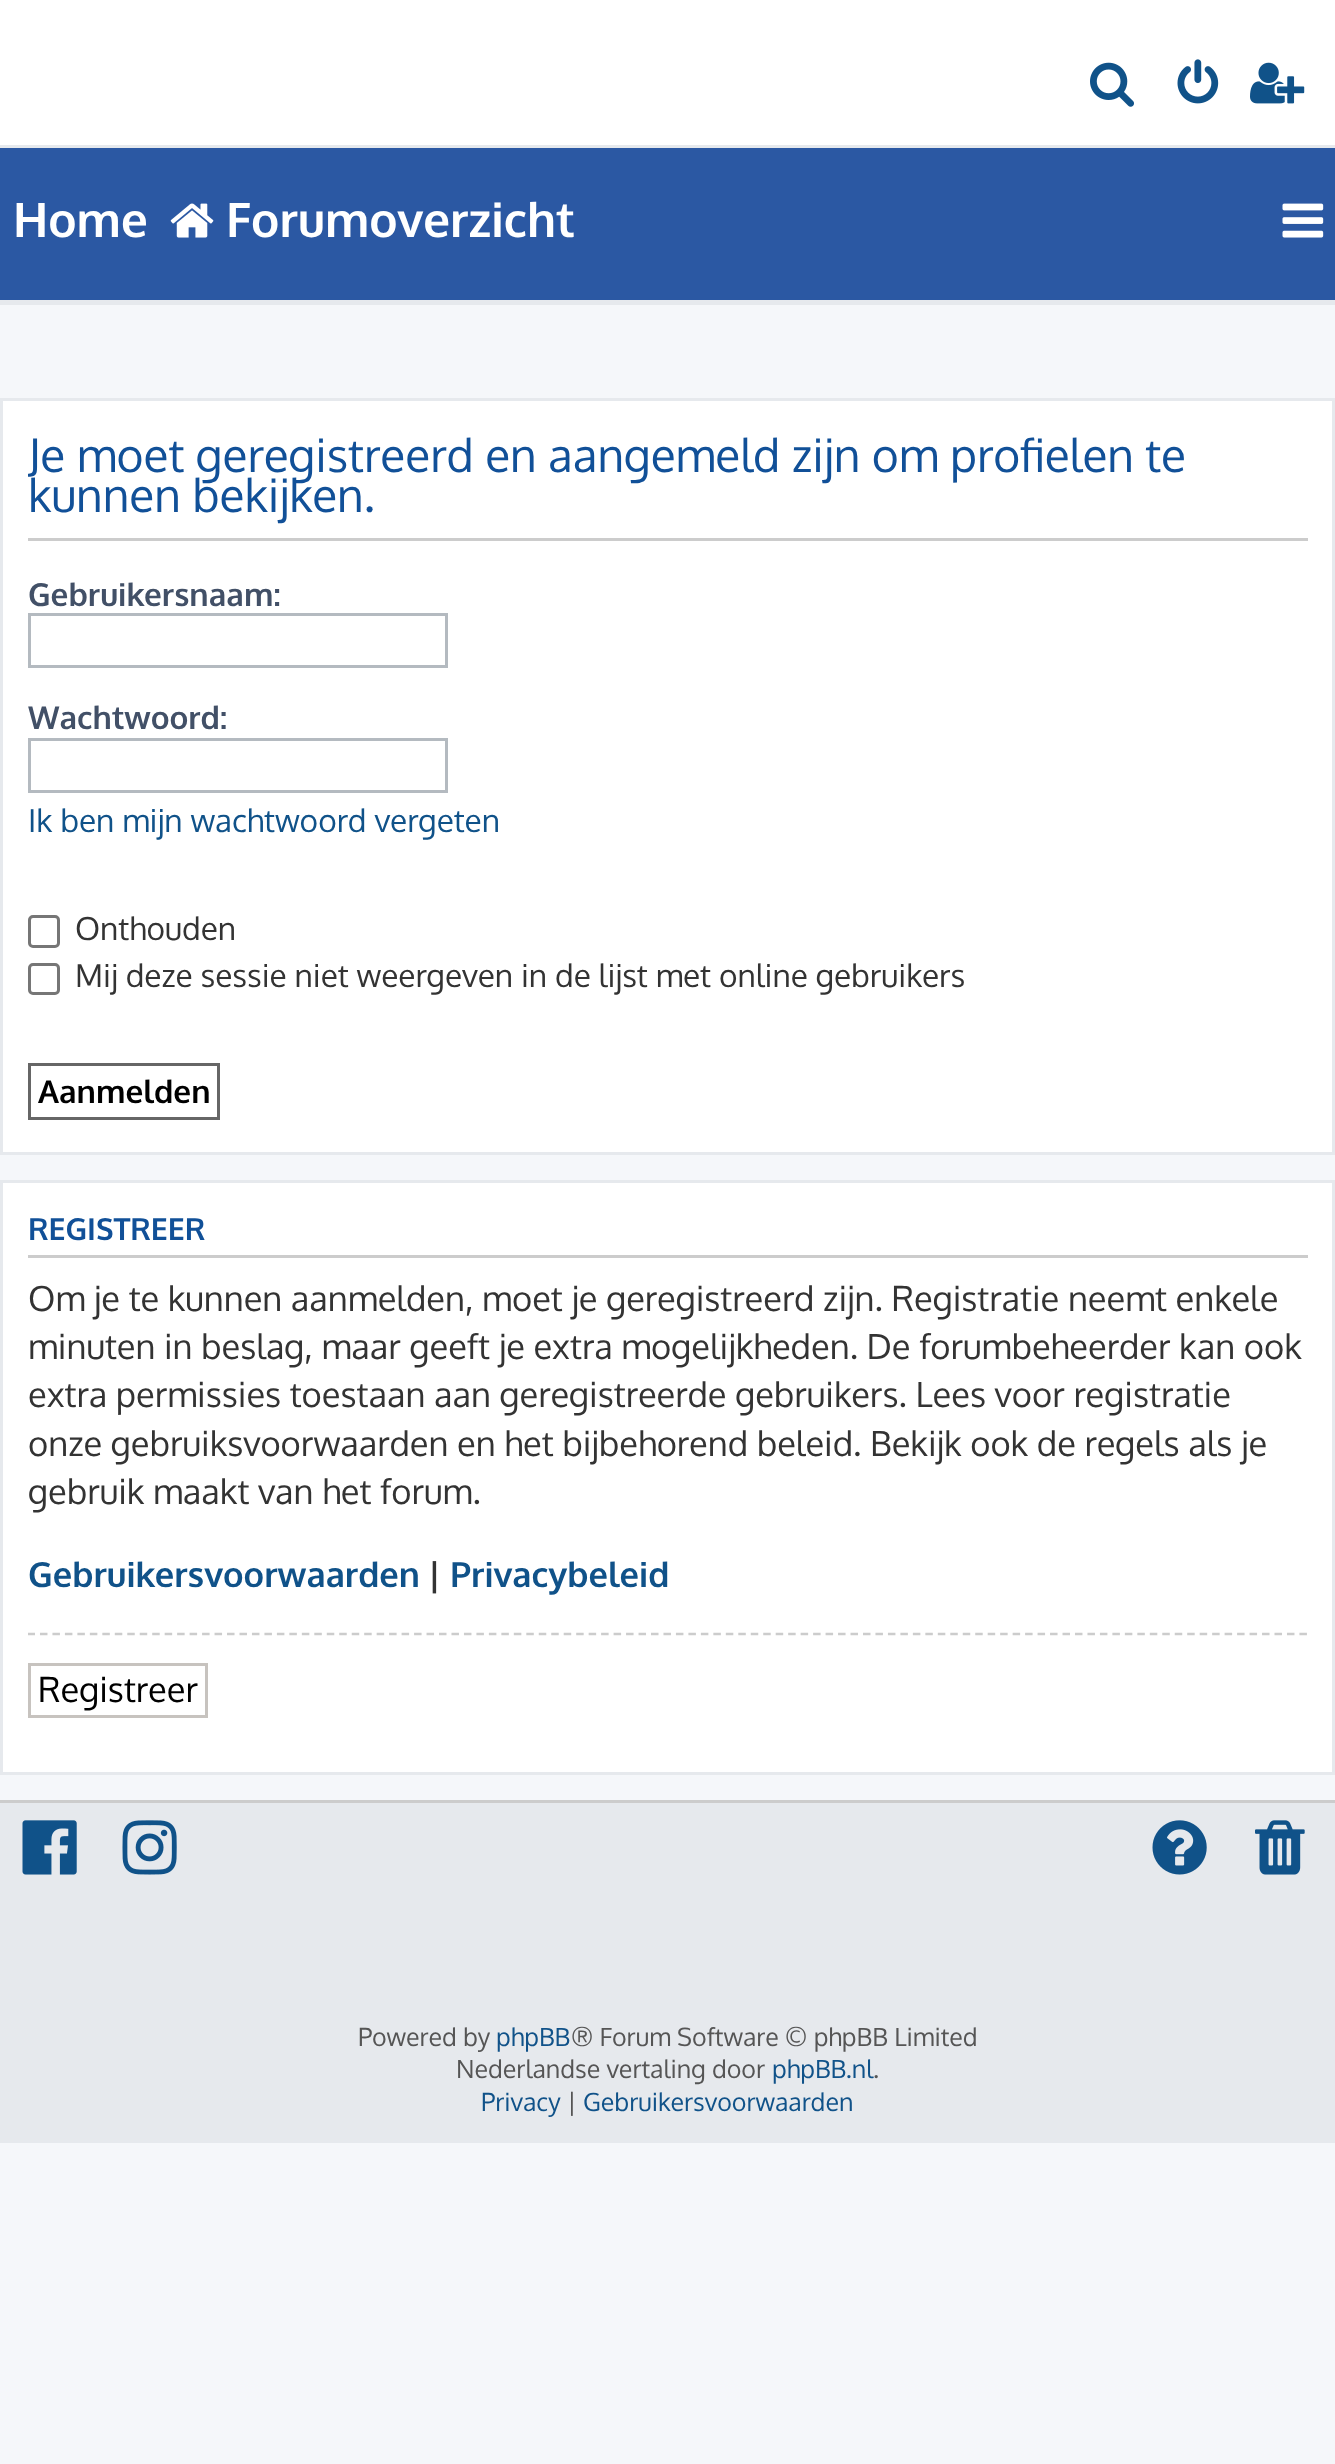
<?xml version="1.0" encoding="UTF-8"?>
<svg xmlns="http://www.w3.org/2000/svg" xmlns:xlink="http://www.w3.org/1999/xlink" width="1335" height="2464">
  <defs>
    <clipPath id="clip1"><rect x="28" y="1195" width="1280" height="565" /></clipPath>
    <clipPath id="clip2"><rect x="28" y="413" width="1280" height="727" /></clipPath>
  </defs>
  <rect width="100%" height="100%" fill="#f5f7fa" />
  <rect width="1335" height="145" fill="#ffffff" />
  <rect y="145" width="1335" height="3" fill="#e6e9ed" />
  <image x="1090" y="62" width="44" height="45" xlink:href="image1.png" />
  <image x="1177" y="59" width="42" height="45" xlink:href="image2.png" />
  <image x="1250" y="62" width="55" height="42" xlink:href="image3.png" />
  <rect y="148" width="1335" height="152" fill="#2b58a3" />
  <rect y="300" width="1335" height="5" fill="#e6e9ed" />
  <image x="170" y="203" width="44" height="35" xlink:href="image4.png" />
  <image x="1282" y="203" width="42" height="35" xlink:href="image5.png" />
  <rect x="1.5" y="399.5" width="1332" height="754" fill="#ffffff" stroke="#e6e9ed" stroke-width="3" />
  <rect x="28" y="538" width="1280" height="3" fill="#cccccc" />
  <rect x="29.5" y="614.5" width="417" height="52" fill="none" stroke="#b4bac0" stroke-width="3" />
  <rect x="29.5" y="739.5" width="417" height="52" fill="none" stroke="#b4bac0" stroke-width="3" />
  <rect x="29.5" y="916.5" width="29" height="30" rx="3.5" fill="none" stroke="#767676" stroke-width="3" />
  <rect x="29.5" y="964.5" width="29" height="29" rx="3.5" fill="none" stroke="#767676" stroke-width="3" />
  <rect x="29.5" y="1064.5" width="189" height="54" fill="none" stroke="#666666" stroke-width="3" />
  <rect x="1.5" y="1181.5" width="1332" height="592" fill="#ffffff" stroke="#e6e9ed" stroke-width="3" />
  <rect x="28" y="1255" width="1280" height="3" fill="#cccccc" />
  <g clip-path="url(#clip1)">
    <path d="M 27.5 1634 h 1280" fill="none" stroke="#cccccc" stroke-width="2.5" stroke-dasharray="7.5 4.97" />
  </g>
  <rect x="29.5" y="1664.5" width="177" height="52" fill="none" stroke="#c7c3bf" stroke-width="3" />
  <rect y="1803" width="1335" height="340" fill="#e6e9ed" />
  <rect y="1800" width="1335" height="3" fill="#cccccc" />
  <image x="22" y="1820" width="55" height="55" xlink:href="image6.png" />
  <image x="122" y="1820" width="55" height="55" xlink:href="image7.png" />
  <image x="1152" y="1820" width="55" height="55" xlink:href="image8.png" />
  <image x="1255" y="1820" width="50" height="55" xlink:href="image9.png" />
  <text x="13" y="237" style="font-family: Oxygen; font-size: 47.5px; font-weight: bold; fill: #ffffff">Home</text>
  <text x="226" y="237" style="font-family: Oxygen; font-size: 47.5px; font-weight: bold; fill: #ffffff">Forumoverzicht</text>
  <g clip-path="url(#clip2)">
    <text x="28" y="472" style="font-family: Oxygen; font-size: 46px; fill: #115098">Je moet geregistreerd en aangemeld zijn om profielen te</text>
  </g>
  <text x="28" y="512" style="font-family: Oxygen; font-size: 46px; fill: #115098">kunnen bekijken.</text>
  <text x="28" y="606" style="font-family: Oxygen; font-size: 31.6px; font-weight: bold; fill: #425067">Gebruikersnaam:</text>
  <text x="28" y="729" style="font-family: Oxygen; font-size: 31.6px; font-weight: bold; fill: #425067">Wachtwoord:</text>
  <text x="28" y="832" style="font-family: Oxygen; font-size: 31.6px; fill: #105289">Ik ben mijn wachtwoord vergeten</text>
  <text x="75" y="940" style="font-family: Oxygen; font-size: 31.6px; fill: #333333">Onthouden</text>
  <text x="75" y="987" style="font-family: Oxygen; font-size: 31.6px; fill: #333333">Mij deze sessie niet weergeven in de lijst met online gebruikers</text>
  <text x="38" y="1103" style="font-family: Oxygen; font-size: 31.6px; font-weight: bold; fill: #000000">Aanmelden</text>
  <text x="28" y="1240" style="font-family: Oxygen; font-size: 30.25px; font-weight: bold; fill: #115098">REGISTREER</text>
  <text x="28" y="1311" style="font-family: Oxygen; font-size: 34.5px; fill: #333333">Om je te kunnen aanmelden, moet je geregistreerd zijn. Registratie neemt enkele</text>
  <text x="28" y="1359" style="font-family: Oxygen; font-size: 34.5px; fill: #333333">minuten in beslag, maar geeft je extra mogelijkheden. De forumbeheerder kan ook</text>
  <text x="28" y="1407" style="font-family: Oxygen; font-size: 34.5px; fill: #333333">extra permissies toestaan aan geregistreerde gebruikers. Lees voor registratie</text>
  <text x="28" y="1456" style="font-family: Oxygen; font-size: 34.5px; fill: #333333">onze gebruiksvoorwaarden en het bijbehorend beleid. Bekijk ook de regels als je</text>
  <text x="28" y="1504" style="font-family: Oxygen; font-size: 34.5px; fill: #333333">gebruik maakt van het forum.</text>
  <text x="28" y="1587" style="font-family: Oxygen; font-size: 34.5px; font-weight: bold; fill: #105289">Gebruikersvoorwaarden</text>
  <text x="428" y="1587" style="font-family: Oxygen; font-size: 34.5px; font-weight: bold; fill: #333333">|</text>
  <text x="450" y="1587" style="font-family: Oxygen; font-size: 34.5px; font-weight: bold; fill: #105289">Privacybeleid</text>
  <text x="38" y="1702" style="font-family: Oxygen; font-size: 34.5px; fill: #000000">Registreer</text>
  <text x="358" y="2046" style="font-family: Oxygen; font-size: 25px; fill: #555555">Powered by</text>
  <text x="496" y="2046" style="font-family: Oxygen; font-size: 25px; fill: #105289">phpBB</text>
  <text x="571" y="2046" style="font-family: Oxygen; font-size: 25px; fill: #555555">® Forum Software © phpBB Limited</text>
  <text x="456" y="2078" style="font-family: Oxygen; font-size: 25px; fill: #555555">Nederlandse vertaling door</text>
  <text x="772" y="2078" style="font-family: Oxygen; font-size: 25px; fill: #105289">phpBB.nl</text>
  <text x="873" y="2078" style="font-family: Oxygen; font-size: 25px; fill: #555555">.</text>
  <text x="481" y="2111" style="font-family: Oxygen; font-size: 25px; fill: #105289">Privacy</text>
  <text x="567" y="2111" style="font-family: Oxygen; font-size: 25px; fill: #555555">|</text>
  <text x="583" y="2111" style="font-family: Oxygen; font-size: 25px; fill: #105289">Gebruikersvoorwaarden</text>
</svg>
